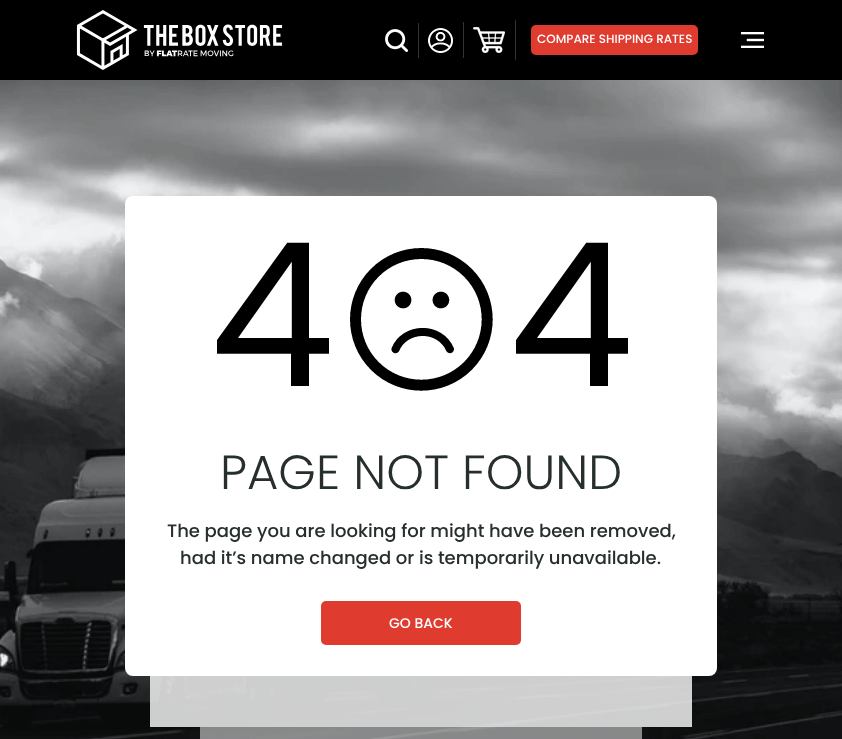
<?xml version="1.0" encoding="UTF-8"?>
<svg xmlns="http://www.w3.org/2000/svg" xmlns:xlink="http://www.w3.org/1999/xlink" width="842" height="739">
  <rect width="100%" height="100%" fill="#ffffff" />
  <rect width="842" height="80" fill="#000000" />
  <image x="76" y="10" width="207" height="60" xlink:href="image1.png" />
  <image x="741" y="32" width="23" height="16" xlink:href="image2.png" />
  <image x="385" y="29" width="23" height="23" xlink:href="image3.png" />
  <rect x="418" y="23" width="1" height="35" fill="#333333" />
  <image x="428" y="28" width="25" height="25" xlink:href="image4.png" />
  <rect x="463" y="22" width="1" height="36" fill="#333333" />
  <image x="473" y="27" width="32" height="26" xlink:href="image5.png" />
  <rect x="515" y="20" width="1" height="40" fill="#333333" />
  <rect x="531" y="25" width="167" height="30" rx="5" fill="#df3b2f" />
  <image x="0" y="80" width="842" height="659" xlink:href="image6.png" />
  <rect x="125" y="196" width="592" height="480" rx="8" fill="#ffffff" />
  <image x="350" y="248" width="143" height="143" xlink:href="image7.png" />
  <rect x="321" y="601" width="200" height="44" rx="5" fill="#df3b2f" />
  <rect x="150" y="676" width="542" height="51" fill="#ffffff" fill-opacity="0.8" />
  <rect x="200" y="727" width="442" height="12" fill="#ffffff" fill-opacity="0.5" />
  <text x="537" y="43" style="font-family: Poppins; font-size: 12px; font-weight: 500; fill: #ffffff">COMPARE SHIPPING RATES</text>
  <text x="209" y="386" style="font-family: Poppins; font-size: 200px; fill: #000000">4</text>
  <text x="508" y="386" style="font-family: Poppins; font-size: 200px; fill: #000000">4</text>
  <text x="220" y="489" style="font-family: Poppins; font-size: 48px; font-weight: 300; fill: #262f2c">PAGE NOT FOUND</text>
  <text x="167" y="537" style="font-family: Poppins; font-size: 18px; font-weight: 500; fill: #262f2c">The page you are looking for might have been removed,</text>
  <text x="180" y="564" style="font-family: Poppins; font-size: 18px; font-weight: 500; fill: #262f2c">had it’s name changed or is temporarily unavailable.</text>
  <text x="389" y="628" style="font-family: Poppins; font-size: 14px; font-weight: 500; fill: #ffffff">GO BACK</text>
</svg>
